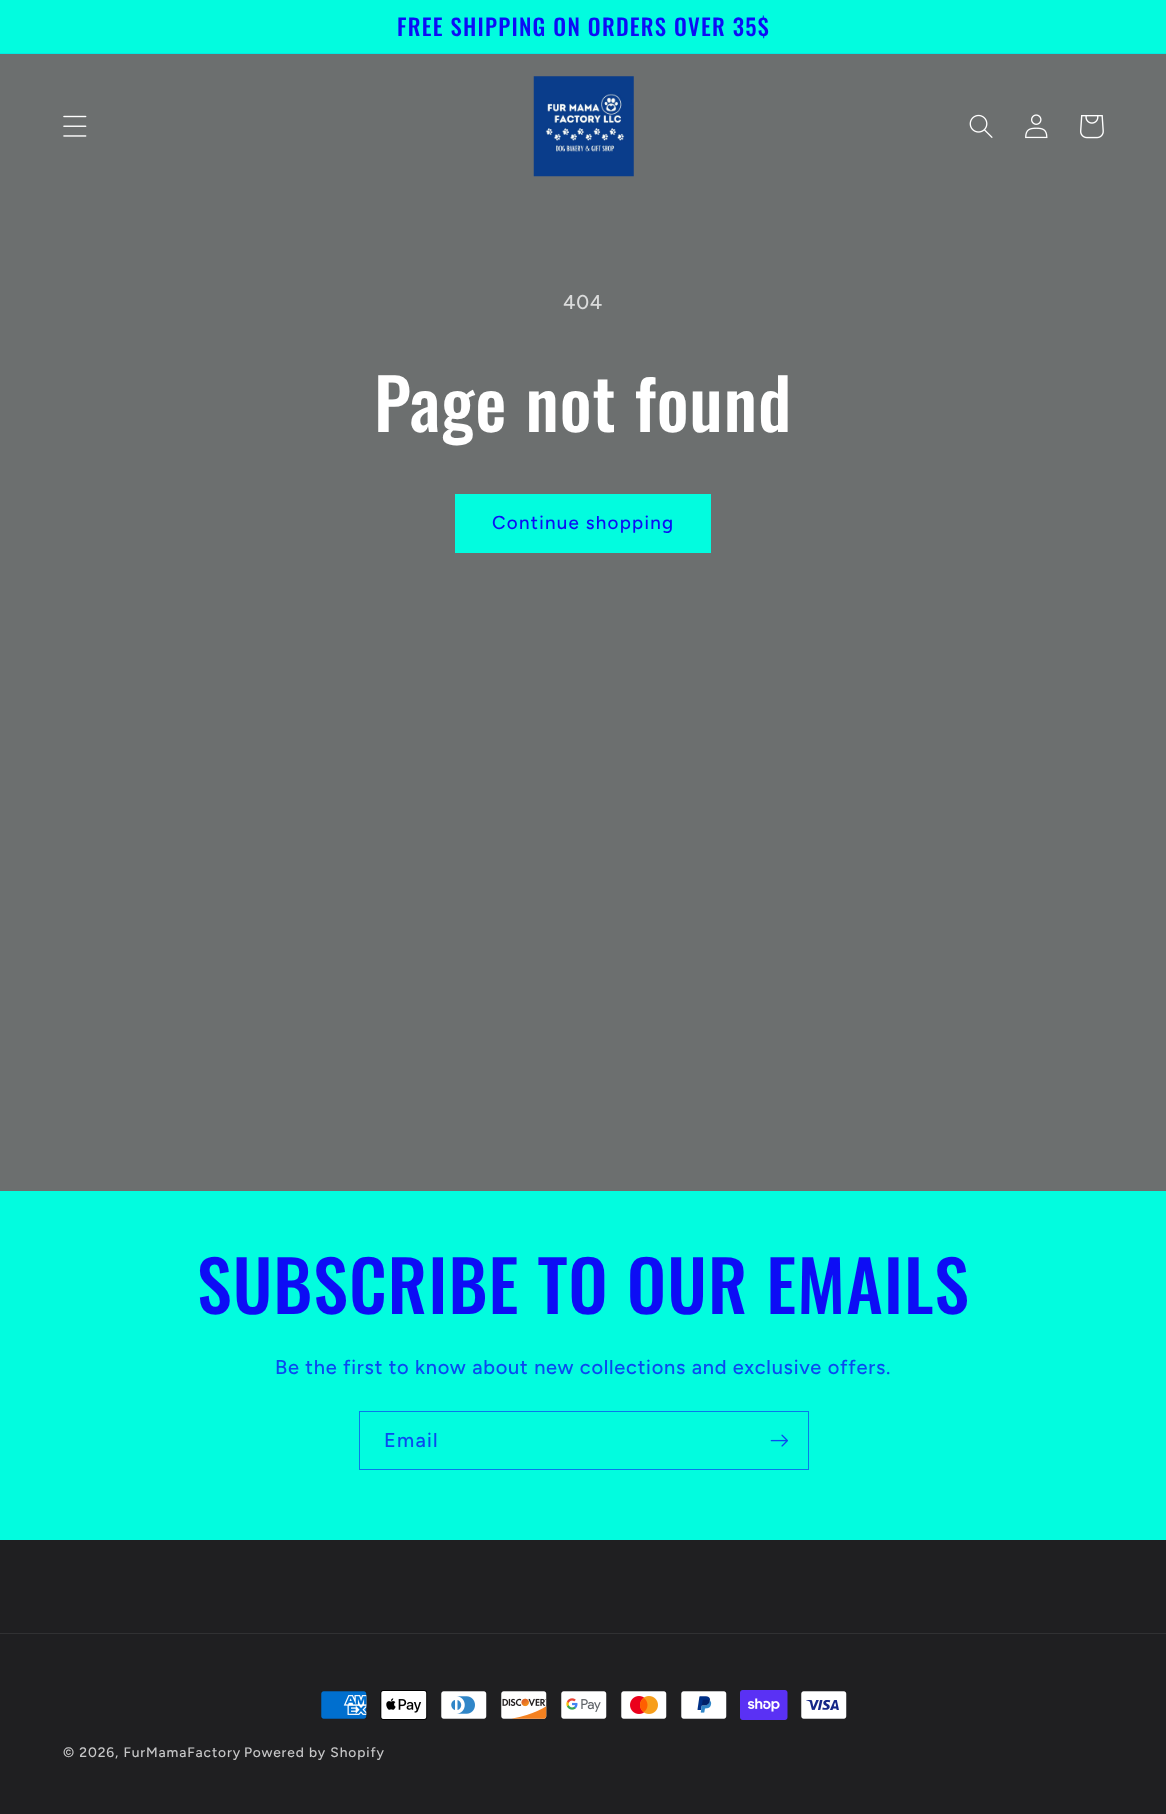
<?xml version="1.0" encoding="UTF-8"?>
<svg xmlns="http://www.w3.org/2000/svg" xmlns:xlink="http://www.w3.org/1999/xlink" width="1166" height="1814">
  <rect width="100%" height="100%" fill="#6c6f6f" />
  <rect width="1166" height="53" fill="#02fcdf" />
  <rect y="53" width="1166" height="1" fill="#03e9e1" />
  <image x="63" y="115" width="24" height="22" xlink:href="image1.png" />
  <image x="533" y="76" width="101" height="101" xlink:href="image2.png" />
  <image x="969" y="114" width="24" height="24" xlink:href="image3.png" />
  <image x="1025" y="114" width="23" height="25" xlink:href="image4.png" />
  <image x="1080" y="115" width="24" height="24" xlink:href="image5.png" />
  <rect x="455" y="494" width="256" height="59" fill="#02fcdf" />
  <rect y="1191" width="1166" height="349" fill="#02fcdf" />
  <rect x="359.5" y="1411.5" width="449" height="58" fill="none" stroke="#0879eb" />
  <image x="770" y="1434" width="18" height="13" xlink:href="image6.png" />
  <rect y="1540" width="1166" height="274" fill="#1f1f21" />
  <rect y="1633" width="1166" height="1" fill="#313133" />
  <image x="321" y="1691" width="46" height="28" xlink:href="image7.png" />
  <image x="380" y="1690" width="48" height="30" xlink:href="image8.png" />
  <image x="441" y="1691" width="46" height="28" xlink:href="image9.png" />
  <image x="501" y="1691" width="46" height="28" xlink:href="image10.png" />
  <image x="561" y="1691" width="46" height="28" xlink:href="image11.png" />
  <image x="621" y="1691" width="46" height="28" xlink:href="image12.png" />
  <image x="681" y="1691" width="46" height="28" xlink:href="image13.png" />
  <image x="740" y="1690" width="48" height="30" xlink:href="image14.png" />
  <image x="801" y="1691" width="46" height="28" xlink:href="image15.png" />
  <text x="397" y="36" style="font-family: Oswald; font-size: 22.75px; font-weight: 500; letter-spacing: 1.25px; fill: #0d0df5">FREE SHIPPING ON ORDERS OVER 35$</text>
  <text x="563" y="309" style="font-family: Figtree; font-size: 20px; font-weight: 500; letter-spacing: 0.75px; fill: #dadbdb">404</text>
  <text x="374" y="432" style="font-family: Oswald; font-size: 70px; font-weight: 500; letter-spacing: 1.05px; fill: #ffffff">Page not found</text>
  <text x="492" y="529" style="font-family: Figtree; font-size: 18.75px; font-weight: 500; letter-spacing: 1.25px; fill: #0d0df5">Continue shopping</text>
  <text x="197" y="1314" style="font-family: Oswald; font-size: 70px; font-weight: 500; letter-spacing: 1.05px; fill: #0d0df5">SUBSCRIBE TO OUR EMAILS</text>
  <text x="275" y="1374" style="font-family: Figtree; font-size: 20px; font-weight: 500; letter-spacing: 0.75px; fill: #0a49f0">Be the first to know about new collections and exclusive offers.</text>
  <text x="384" y="1447" style="font-family: Figtree; font-size: 20px; font-weight: 500; letter-spacing: 1.25px; fill: #0a49f0">Email</text>
  <text x="63" y="1757" style="font-family: Figtree; font-size: 13.75px; font-weight: 500; letter-spacing: 0.9px; fill: #c7c7c8">© 2026, FurMamaFactory</text>
  <text x="244" y="1757" style="font-family: Figtree; font-size: 13.75px; font-weight: 500; letter-spacing: 0.9px; fill: #c7c7c8">Powered by Shopify</text>
</svg>
